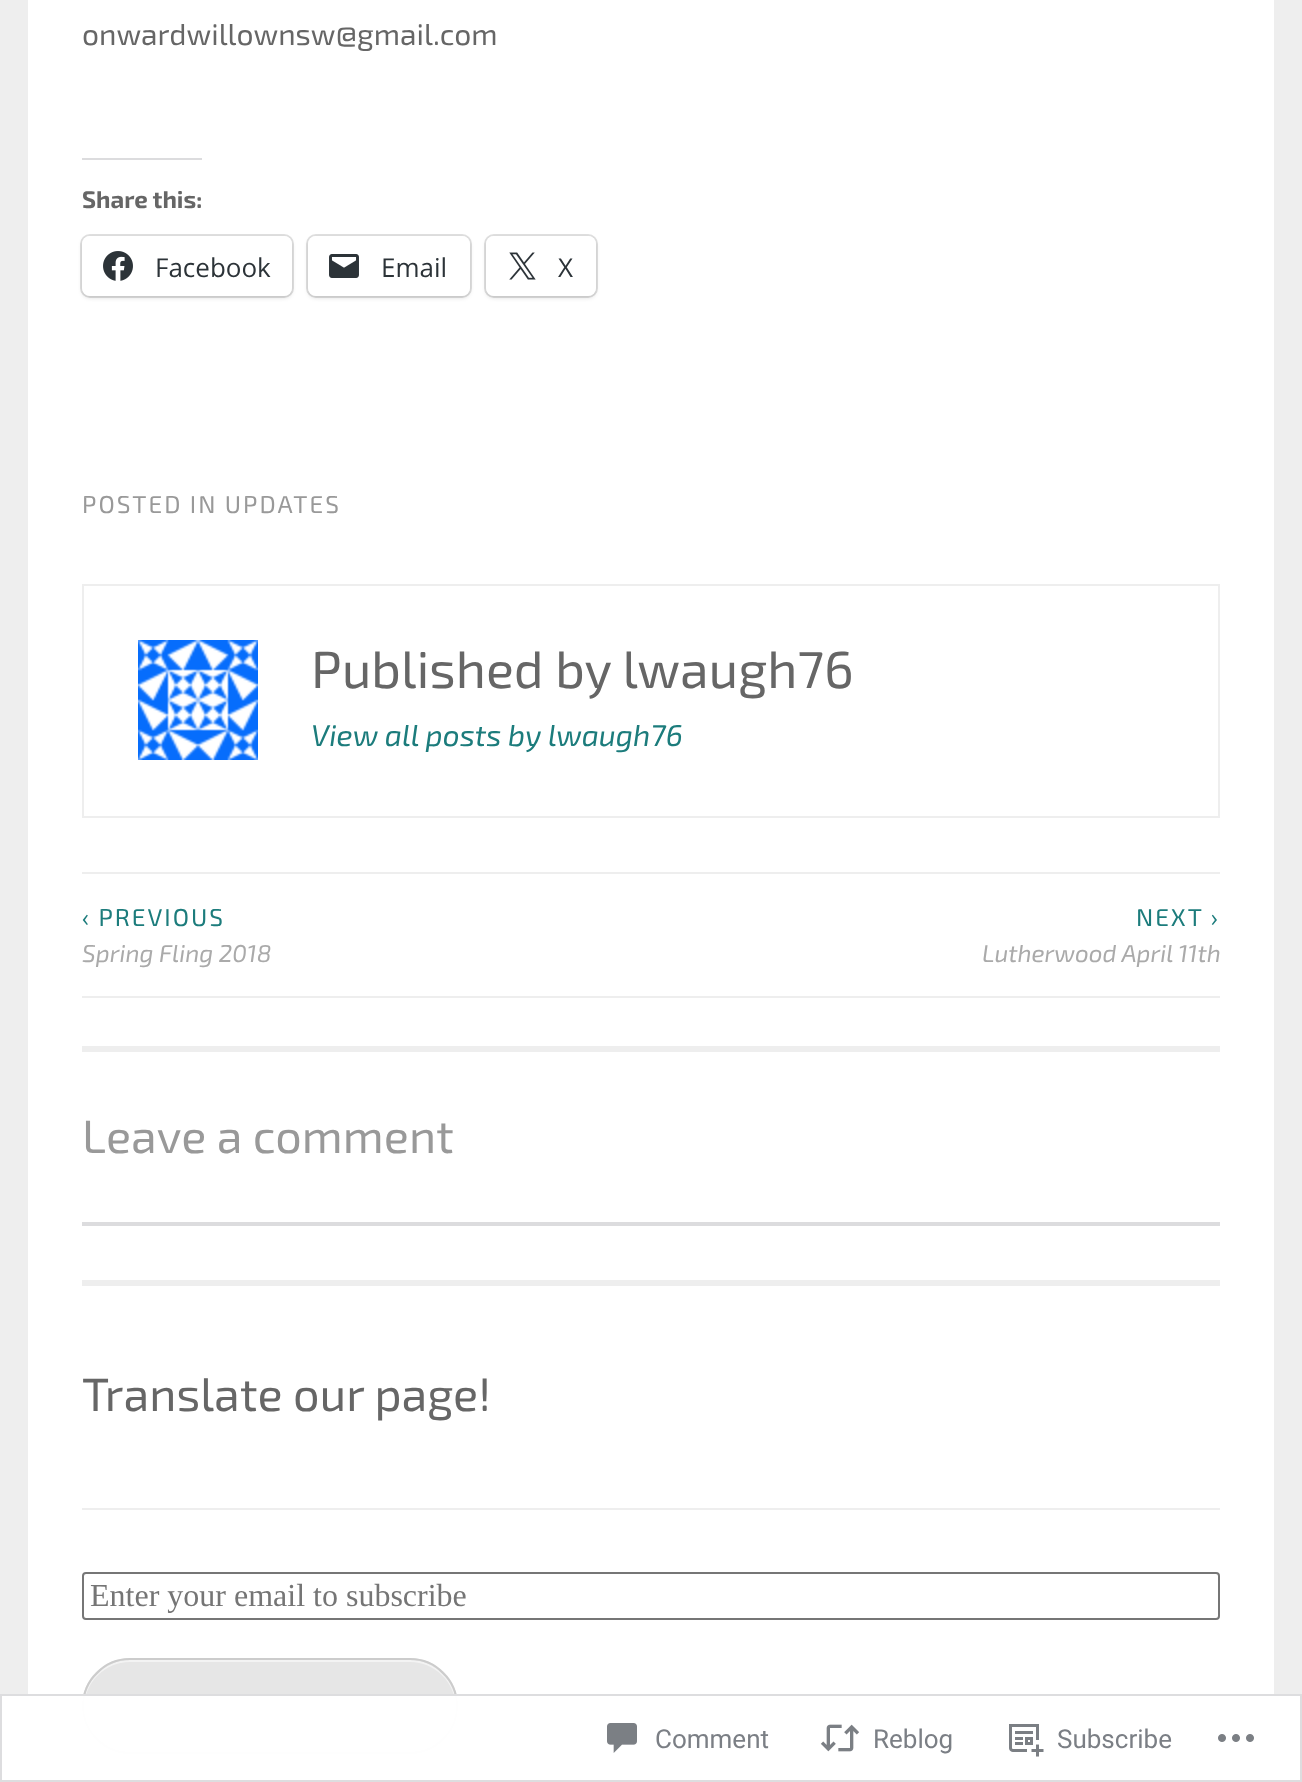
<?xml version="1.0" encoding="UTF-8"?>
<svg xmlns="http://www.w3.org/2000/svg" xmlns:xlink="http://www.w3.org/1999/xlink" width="1302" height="1782">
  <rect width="100%" height="100%" fill="#eeeeee" />
  <rect x="28" width="1246" height="1780" fill="#ffffff" />
  <rect x="82" y="158" width="120" height="2" fill="#dcdcde" />
  <rect x="81" y="235" width="212" height="62" rx="9" fill="none" stroke="#e0e0e0" stroke-width="2" />
  <rect x="82" y="238" width="210" height="60" rx="8" fill="#000000" fill-opacity="0.12" filter="blur(2px)" />
  <rect x="82" y="236" width="210" height="60" rx="8" fill="#ffffff" />
  <image x="103" y="251" width="30" height="30" xlink:href="image1.png" />
  <rect x="307" y="235" width="164" height="62" rx="9" fill="none" stroke="#e0e0e0" stroke-width="2" />
  <rect x="308" y="238" width="162" height="60" rx="8" fill="#000000" fill-opacity="0.12" filter="blur(2px)" />
  <rect x="308" y="236" width="162" height="60" rx="8" fill="#ffffff" />
  <image x="329" y="254" width="30" height="24" xlink:href="image2.png" />
  <rect x="485" y="235" width="112" height="62" rx="9" fill="none" stroke="#e0e0e0" stroke-width="2" />
  <rect x="486" y="238" width="110" height="60" rx="8" fill="#000000" fill-opacity="0.12" filter="blur(2px)" />
  <rect x="486" y="236" width="110" height="60" rx="8" fill="#ffffff" />
  <image x="509" y="252" width="27" height="28" xlink:href="image3.png" />
  <rect x="83" y="585" width="1136" height="232" fill="none" stroke="#eeeeee" stroke-width="2" />
  <image x="138" y="640" width="120" height="120" xlink:href="image4.png" />
  <rect x="82" y="872" width="1138" height="2" fill="#eeeeee" />
  <rect x="82" y="996" width="1138" height="2" fill="#eeeeee" />
  <rect x="82" y="1046" width="1138" height="6" fill="#eeeeee" />
  <rect x="82" y="1222" width="1138" height="4" fill="#dcdcde" />
  <rect x="82" y="1280" width="1138" height="6" fill="#eeeeee" />
  <rect x="82" y="1508" width="1138" height="2" fill="#eeeeee" />
  <rect x="83" y="1573" width="1136" height="46" rx="3" fill="none" stroke="#767676" stroke-width="2" />
  <rect x="82" y="1658" width="376" height="96" rx="48" fill="#e6e6e6" />
  <path d="M 130 1662 h 280 c 25 0 45 20 46 45 v -1 c 0 -25 -21 -46 -46 -46 h -280 c -25 0 -46 21 -46 46 v 1 c 1 -25 21 -45 46 -45 z" fill="#f3f3f3" />
  <path d="M 443 1739 c -8.5 9 -20.5 14 -33 14 h -280 c -12.5 0 -24.5 -5 -33 -14" fill="none" stroke="#bbbbbb" stroke-width="2" />
  <path d="M 97 1739 c -9 -8.5 -14 -20.5 -14 -33 c 0 -12.5 5 -24.5 14 -33 c 8.5 -9 20.5 -14 33 -14 h 280 c 12.5 0 24.5 5 33 14 c 9 8.5 14 20.5 14 33 c 0 12.5 -5 24.5 -14 33" fill="none" stroke="#cccccc" stroke-width="2" />
  <rect x="1" y="1695" width="1300" height="86" fill="#ffffff" fill-opacity="0.98" stroke="#dddddf" stroke-width="2" />
  <image x="607" y="1723" width="30" height="30" xlink:href="image5.png" />
  <image x="820" y="1724" width="40" height="28" xlink:href="image6.png" />
  <image x="1009" y="1724" width="35" height="33" xlink:href="image7.png" />
  <image x="1218" y="1734" width="36" height="8" xlink:href="image8.png" />
  <text x="82" y="45" style="font-family: 'Exo 2'; font-size: 30px; fill: #666666">onwardwillownsw@gmail.com</text>
  <text x="82" y="208" style="font-family: 'Exo 2'; font-size: 24px; font-weight: bold; fill: #666666">Share this:</text>
  <text x="155" y="277" style="font-family: Open Sans; font-size: 26px; fill: #2c3338">Facebook</text>
  <text x="381" y="277" style="font-family: Open Sans; font-size: 26px; fill: #2c3338">Email</text>
  <text x="558" y="277" style="font-family: Open Sans; font-size: 26px; fill: #2c3338">X</text>
  <text x="82" y="513" style="font-family: 'Exo 2'; font-size: 24.4px; letter-spacing: 2px; fill: #999999">POSTED IN UPDATES</text>
  <text x="311" y="688" style="font-family: 'Exo 2'; font-size: 52px; fill: #666666">Published by lwaugh76</text>
  <text x="311" y="746" style="font-family: 'Exo 2'; font-size: 30px; font-style: italic; fill: #1c7c7c">View all posts by lwaugh76</text>
  <text x="82" y="926" style="font-family: 'Exo 2'; font-size: 24.4px; letter-spacing: 2px; fill: #1c7c7c">‹ PREVIOUS</text>
  <text x="82" y="962" style="font-family: 'Exo 2'; font-size: 24.4px; font-style: italic; fill: #aaaaaa">Spring Fling 2018</text>
  <text x="1136" y="926" style="font-family: 'Exo 2'; font-size: 24.4px; letter-spacing: 2px; fill: #1c7c7c">NEXT ›</text>
  <text x="982" y="962" style="font-family: 'Exo 2'; font-size: 24.4px; font-style: italic; fill: #aaaaaa">Lutherwood April 11th</text>
  <text x="82" y="1153" style="font-family: 'Exo 2'; font-size: 46.75px; fill: #999999">Leave a comment</text>
  <text x="82" y="1411" style="font-family: 'Exo 2'; font-size: 46.75px; fill: #666666">Translate our page!</text>
  <text x="90" y="1606" style="font-family: Liberation Serif; font-size: 32px; fill: #757575">Enter your email to subscribe</text>
  <text x="655" y="1748" style="font-family: Roboto; font-size: 26px; fill: #7b7f85">Comment</text>
  <text x="873" y="1748" style="font-family: Roboto; font-size: 26px; fill: #7b7f85">Reblog</text>
  <text x="1057" y="1748" style="font-family: Roboto; font-size: 26px; fill: #7b7f85">Subscribe</text>
</svg>
